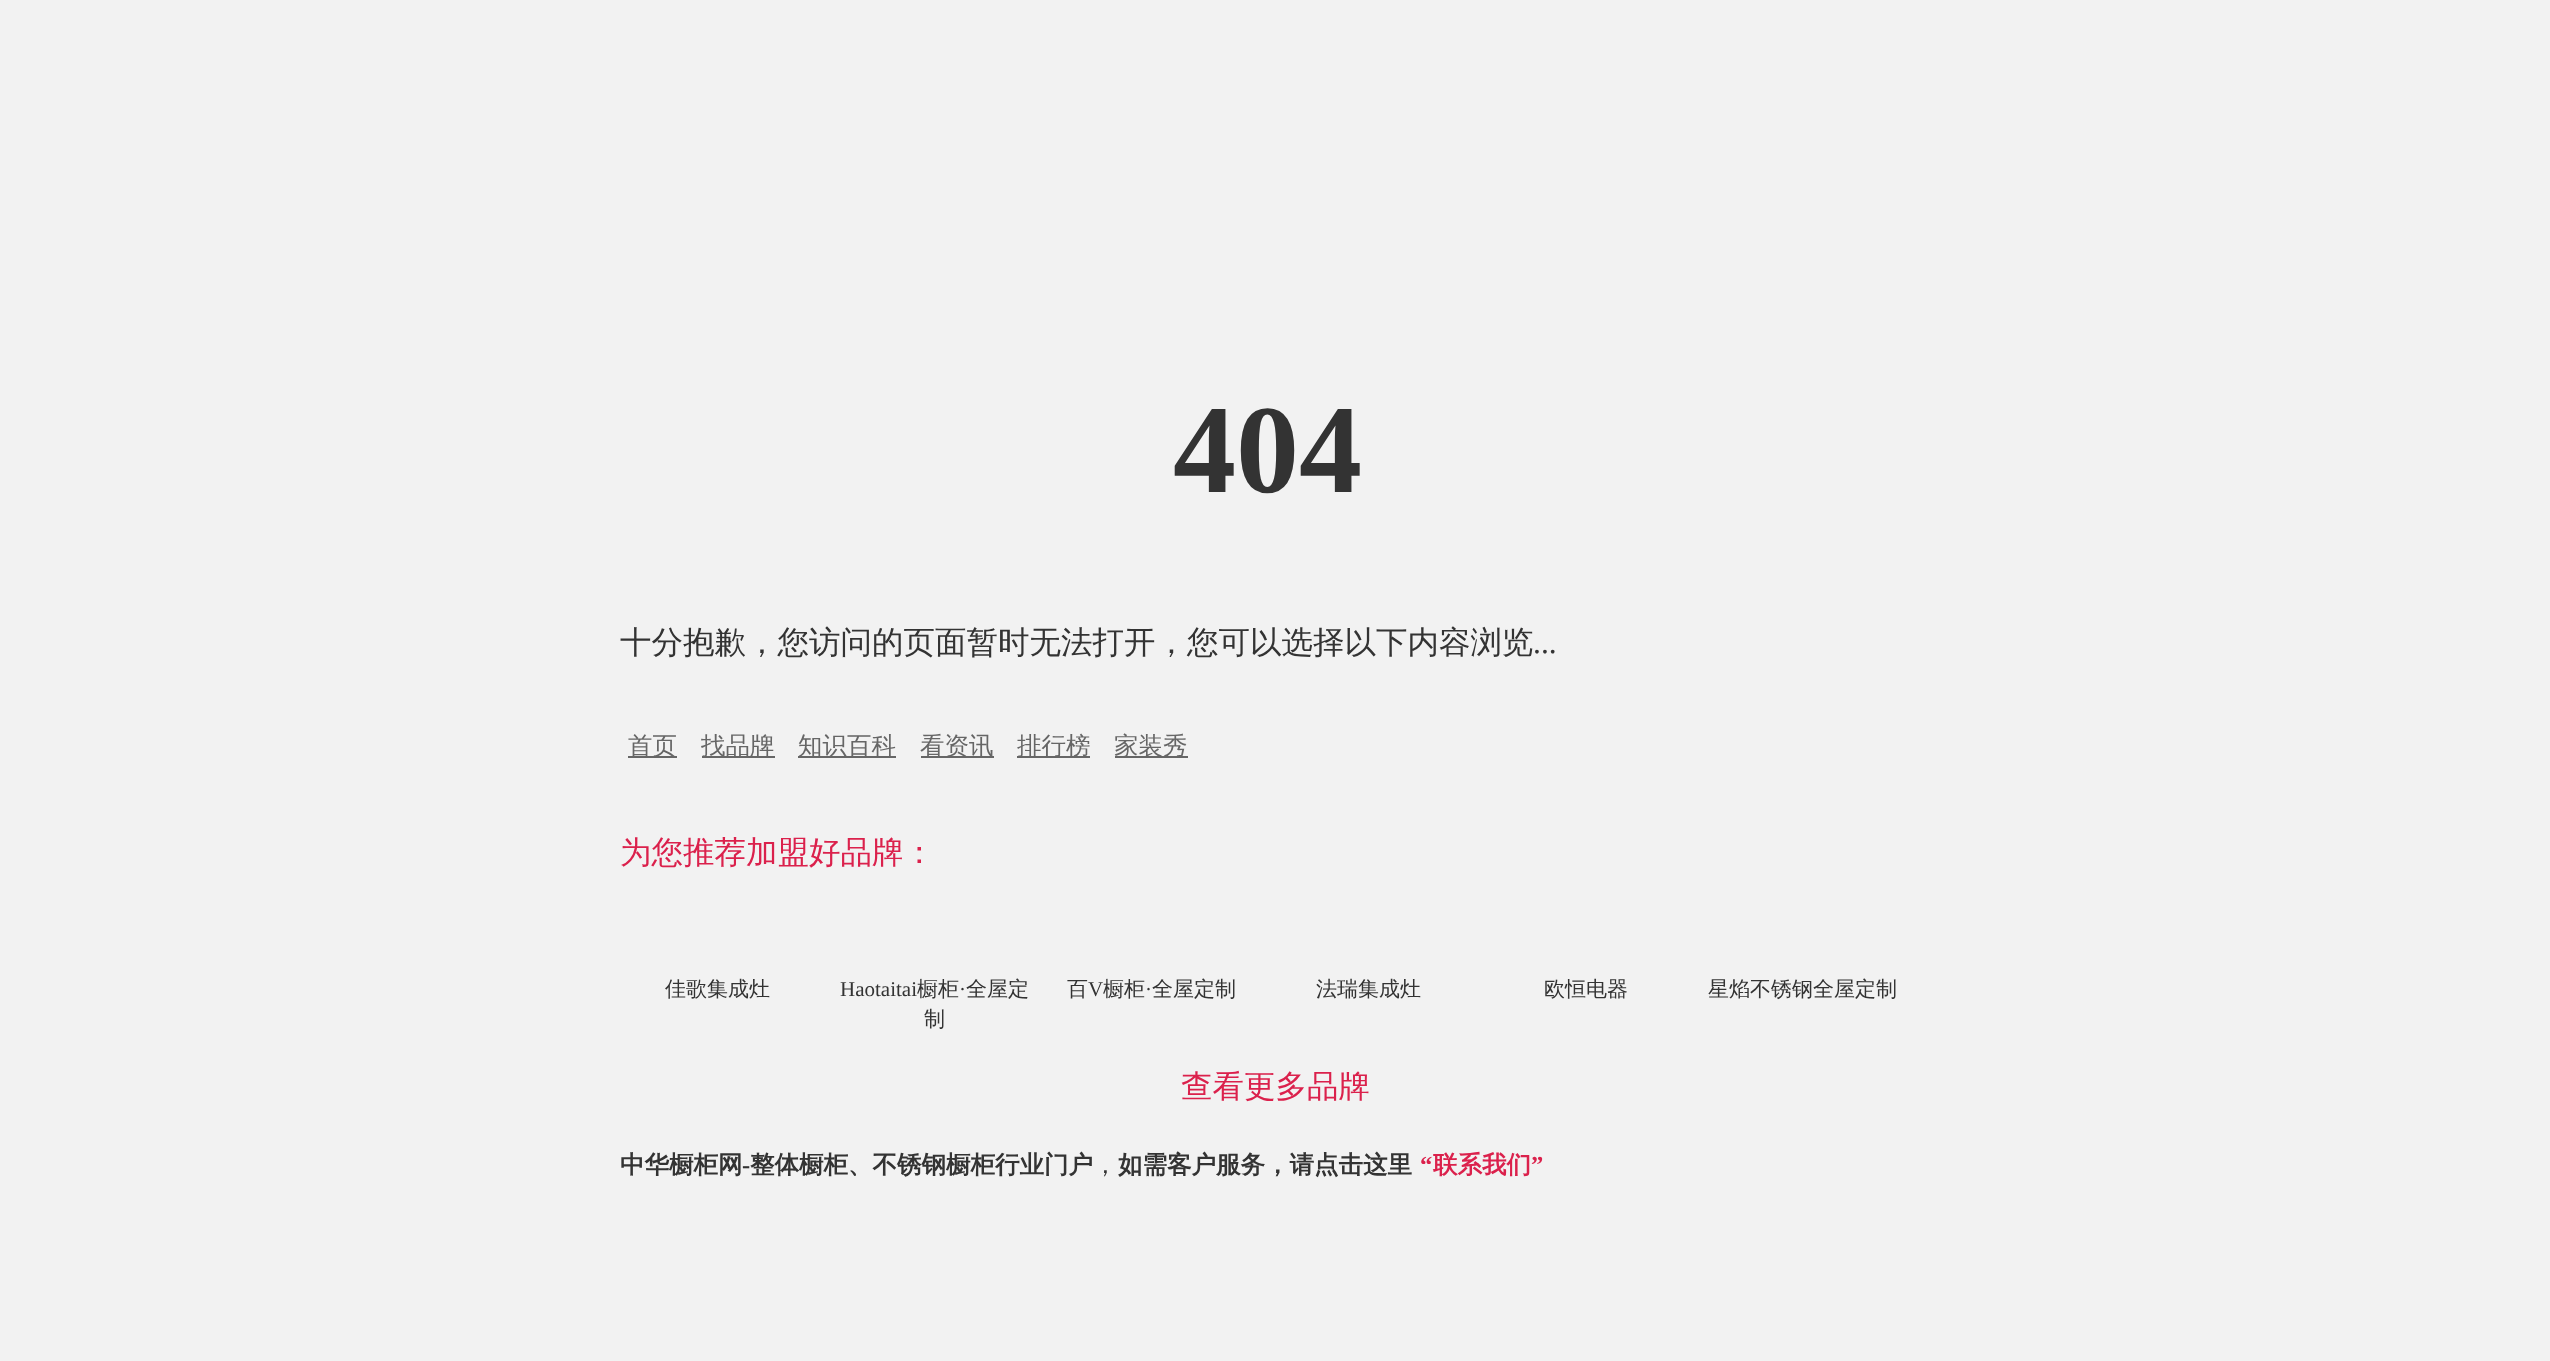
<?xml version="1.0" encoding="UTF-8"?>
<svg xmlns="http://www.w3.org/2000/svg" xmlns:xlink="http://www.w3.org/1999/xlink" width="2550" height="1361">
  <rect width="100%" height="100%" fill="#f2f2f2" />
  <rect x="628" y="756" width="49" height="2" fill="#666666" />
  <rect x="702" y="756" width="73" height="2" fill="#666666" />
  <rect x="798" y="756" width="98" height="2" fill="#666666" />
  <rect x="921" y="756" width="73" height="2" fill="#666666" />
  <rect x="1017" y="756" width="73" height="2" fill="#666666" />
  <rect x="1115" y="756" width="73" height="2" fill="#666666" />
  <text x="1173" y="492" style="font-family: Liberation Serif; font-size: 126px; font-weight: bold; fill: #333333">404</text>
  <text x="620" y="653" style="font-family: WenQuanYi Zen Hei; font-size: 31.5px; font-weight: 500; fill: #333333">十分抱歉，您访问的页面暂时无法打开，您可以选择以下内容浏览</text>
  <text x="1533" y="653" style="font-family: Liberation Serif; font-size: 31.5px; fill: #333333">...</text>
  <text x="628" y="754" style="font-family: WenQuanYi Zen Hei; font-size: 24.5px; font-weight: 500; fill: #666666">首页</text>
  <text x="701" y="754" style="font-family: WenQuanYi Zen Hei; font-size: 24.5px; font-weight: 500; fill: #666666">找品牌</text>
  <text x="798" y="754" style="font-family: WenQuanYi Zen Hei; font-size: 24.5px; font-weight: 500; fill: #666666">知识百科</text>
  <text x="920" y="754" style="font-family: WenQuanYi Zen Hei; font-size: 24.5px; font-weight: 500; fill: #666666">看资讯</text>
  <text x="1017" y="754" style="font-family: WenQuanYi Zen Hei; font-size: 24.5px; font-weight: 500; fill: #666666">排行榜</text>
  <text x="1114" y="754" style="font-family: WenQuanYi Zen Hei; font-size: 24.5px; font-weight: 500; fill: #666666">家装秀</text>
  <text x="620" y="863" style="font-family: WenQuanYi Zen Hei; font-size: 31.5px; font-weight: 500; fill: #db214c">为您推荐加盟好品牌：</text>
  <text x="665" y="996" style="font-family: WenQuanYi Zen Hei; font-size: 21px; font-weight: 500; fill: #333333">佳歌集成灶</text>
  <text x="840" y="996" style="font-family: Liberation Serif; font-size: 21px; fill: #333333">Haotaitai</text>
  <text x="917" y="996" style="font-family: WenQuanYi Zen Hei; font-size: 21px; font-weight: 500; fill: #333333">橱柜</text>
  <text x="959" y="996" style="font-family: Liberation Serif; font-size: 21px; fill: #333333">·</text>
  <text x="966" y="996" style="font-family: WenQuanYi Zen Hei; font-size: 21px; font-weight: 500; fill: #333333">全屋定</text>
  <text x="924" y="1026" style="font-family: WenQuanYi Zen Hei; font-size: 21px; font-weight: 500; fill: #333333">制</text>
  <text x="1067" y="996" style="font-family: WenQuanYi Zen Hei; font-size: 21px; font-weight: 500; fill: #333333">百</text>
  <text x="1088" y="996" style="font-family: Liberation Serif; font-size: 21px; fill: #333333">V</text>
  <text x="1103" y="996" style="font-family: WenQuanYi Zen Hei; font-size: 21px; font-weight: 500; fill: #333333">橱柜</text>
  <text x="1145" y="996" style="font-family: Liberation Serif; font-size: 21px; fill: #333333">·</text>
  <text x="1152" y="996" style="font-family: WenQuanYi Zen Hei; font-size: 21px; font-weight: 500; fill: #333333">全屋定制</text>
  <text x="1316" y="996" style="font-family: WenQuanYi Zen Hei; font-size: 21px; font-weight: 500; fill: #333333">法瑞集成灶</text>
  <text x="1544" y="996" style="font-family: WenQuanYi Zen Hei; font-size: 21px; font-weight: 500; fill: #333333">欧恒电器</text>
  <text x="1708" y="996" style="font-family: WenQuanYi Zen Hei; font-size: 21px; font-weight: 500; fill: #333333">星焰不锈钢全屋定制</text>
  <text x="1181" y="1097" style="font-family: WenQuanYi Zen Hei; font-size: 31.5px; font-weight: 500; fill: #db214c">查看更多品牌</text>
  <text x="620" y="1173" style="font-family: WenQuanYi Zen Hei; font-size: 24.5px; font-weight: bold; fill: #333333">中华橱柜网</text>
  <text x="750" y="1173" style="font-family: WenQuanYi Zen Hei; font-size: 24.5px; font-weight: bold; fill: #333333">整体橱柜、不锈钢橱柜行业门户</text>
  <text x="1118" y="1173" style="font-family: WenQuanYi Zen Hei; font-size: 24.5px; font-weight: bold; fill: #333333">如需客户服务，请点击这里</text>
  <text x="1420" y="1173" style="font-family: Liberation Serif; font-size: 24.5px; font-weight: bold; fill: #db214c">“</text>
  <text x="1433" y="1173" style="font-family: WenQuanYi Zen Hei; font-size: 24.5px; font-weight: bold; fill: #db214c">联系我们</text>
  <text x="1531" y="1173" style="font-family: Liberation Serif; font-size: 24.5px; font-weight: bold; fill: #db214c">”</text>
  <text x="742" y="1173" style="font-family: Liberation Serif; font-size: 24.5px; font-weight: bold; fill: #333333">-</text>
  <text x="1093" y="1173" style="font-family: WenQuanYi Zen Hei; font-size: 24.5px; font-weight: 500; fill: #333333">，</text>
</svg>
